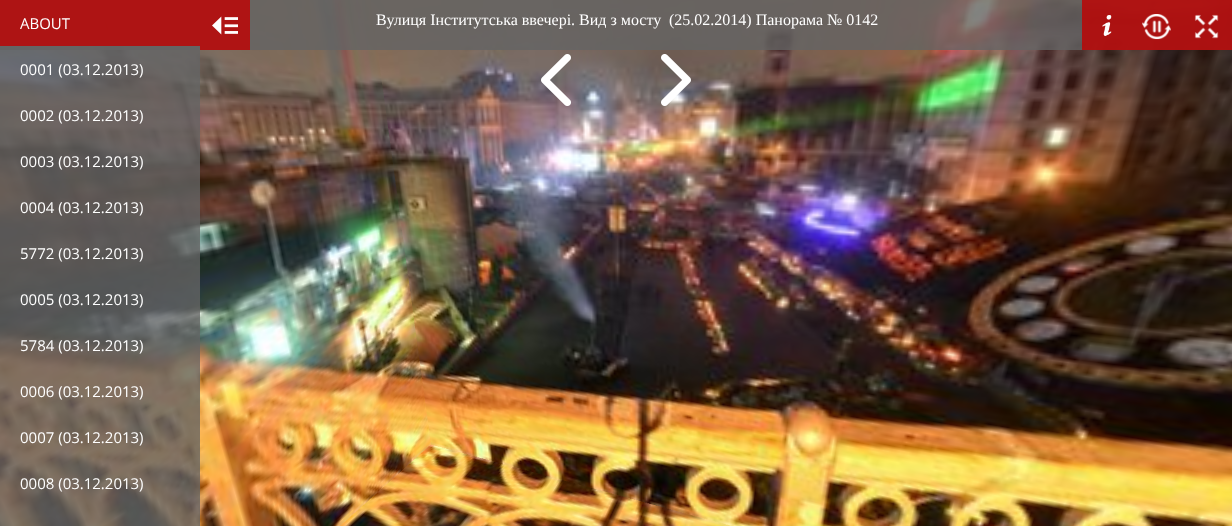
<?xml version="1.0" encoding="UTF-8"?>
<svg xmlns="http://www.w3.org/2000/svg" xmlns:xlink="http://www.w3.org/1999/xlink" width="1232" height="526">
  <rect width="100%" height="100%" fill="#ffffff" />
  <image x="0" y="0" width="1232" height="526" xlink:href="image1.png" />
  <rect width="1232" height="50" fill="#646464" fill-opacity="0.8" />
  <rect x="1132" width="100" height="50" fill="#c00000" fill-opacity="0.8" />
  <image x="1142" y="14" width="29" height="26" xlink:href="image2.png" />
  <image x="1194" y="14" width="25" height="25" xlink:href="image3.png" />
  <rect width="200" height="526" fill="#646464" fill-opacity="0.8" />
  <rect width="200" height="46" fill="#c00000" fill-opacity="0.8" />
  <rect x="200" width="50" height="50" fill="#af1414" />
  <image x="212" y="16" width="26" height="19" xlink:href="image4.png" />
  <image x="541" y="54" width="30" height="52" xlink:href="image5.png" />
  <image x="661" y="54" width="30" height="52" xlink:href="image6.png" />
  <rect x="1082" width="50" height="50" fill="#c00000" fill-opacity="0.8" />
  <image x="1102" y="15" width="10" height="21" xlink:href="image7.png" />
  <text x="20" y="29" style="font-family: Open Sans; font-size: 15px; fill: #ffffff">ABOUT</text>
  <text x="20" y="75" style="font-family: Open Sans; font-size: 15px; fill: #ffffff">0001 (03.12.2013)</text>
  <text x="20" y="121" style="font-family: Open Sans; font-size: 15px; fill: #ffffff">0002 (03.12.2013)</text>
  <text x="20" y="167" style="font-family: Open Sans; font-size: 15px; fill: #ffffff">0003 (03.12.2013)</text>
  <text x="20" y="213" style="font-family: Open Sans; font-size: 15px; fill: #ffffff">0004 (03.12.2013)</text>
  <text x="20" y="259" style="font-family: Open Sans; font-size: 15px; fill: #ffffff">5772 (03.12.2013)</text>
  <text x="20" y="305" style="font-family: Open Sans; font-size: 15px; fill: #ffffff">0005 (03.12.2013)</text>
  <text x="20" y="351" style="font-family: Open Sans; font-size: 15px; fill: #ffffff">5784 (03.12.2013)</text>
  <text x="20" y="397" style="font-family: Open Sans; font-size: 15px; fill: #ffffff">0006 (03.12.2013)</text>
  <text x="20" y="443" style="font-family: Open Sans; font-size: 15px; fill: #ffffff">0007 (03.12.2013)</text>
  <text x="20" y="489" style="font-family: Open Sans; font-size: 15px; fill: #ffffff">0008 (03.12.2013)</text>
  <text x="376" y="25" style="font-family: Liberation Serif; font-size: 16px; fill: #ffffff">Вулиця Інститутська ввечері. Вид з мосту</text>
  <text x="669" y="25" style="font-family: Liberation Serif; font-size: 16px; fill: #ffffff">(25.02.2014) Панорама № 0142</text>
</svg>
